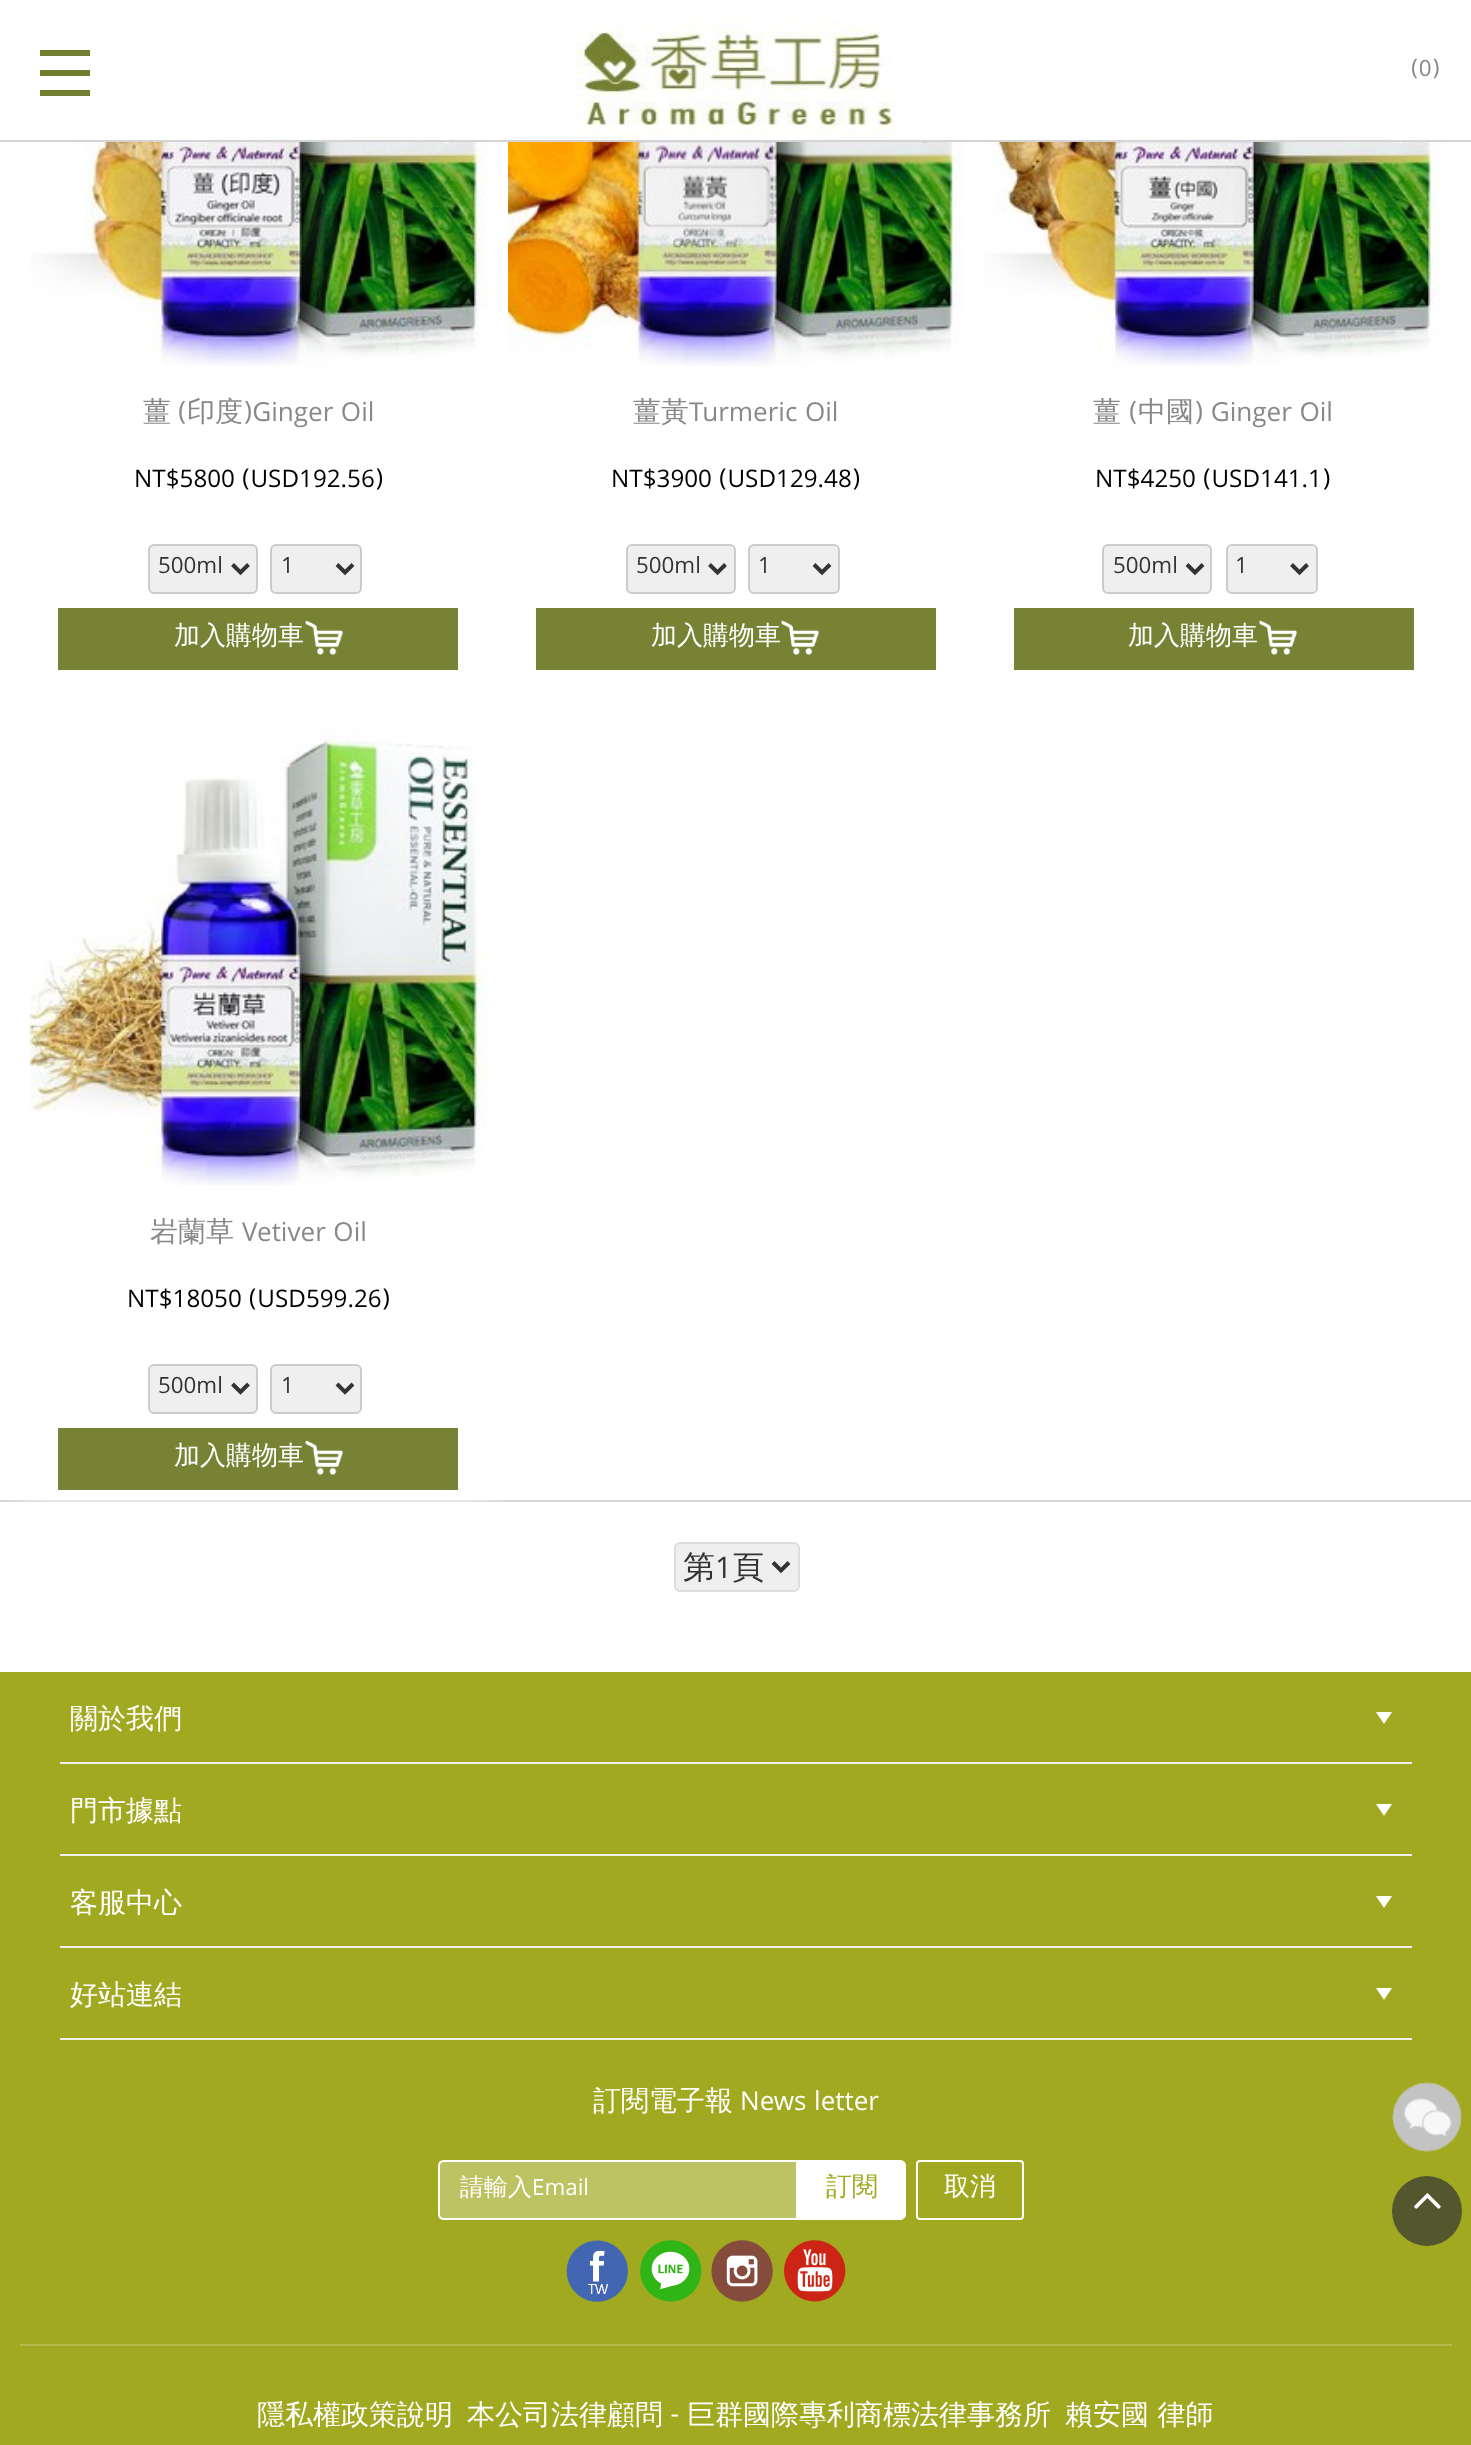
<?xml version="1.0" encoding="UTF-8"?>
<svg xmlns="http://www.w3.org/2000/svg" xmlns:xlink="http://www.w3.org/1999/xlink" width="1471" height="2445">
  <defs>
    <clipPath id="clip1"><path d="M 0 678 h 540 v 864 h -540 z m 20 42 h 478 v 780 h -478 z" clip-rule="evenodd" /></clipPath>
  </defs>
  <rect width="100%" height="100%" fill="#ffffff" />
  <rect y="140" width="1471" height="2" fill="#d4d4d4" />
  <rect x="40" y="50" width="50" height="6" fill="#717e2d" />
  <rect x="40" y="70" width="50" height="6" fill="#717e2d" />
  <rect x="40" y="90" width="50" height="6" fill="#717e2d" />
  <image x="576" y="20" width="320" height="116" xlink:href="image1.png" />
  <image x="30" y="142" width="458" height="225" xlink:href="image2.png" />
  <rect x="149" y="545" width="108" height="48" rx="5" fill="#efefef" stroke="#cccccc" stroke-width="2" />
  <path d="M 232.5 564.5 l 8 8 l 8 -8" fill="none" stroke="#333333" stroke-width="4" />
  <rect x="271" y="545" width="90" height="48" rx="5" fill="#efefef" stroke="#cccccc" stroke-width="2" />
  <path d="M 337 564.5 l 8 8 l 8 -8" fill="none" stroke="#333333" stroke-width="4" />
  <rect x="58" y="608" width="400" height="62" fill="#778234" />
  <image x="305" y="620" width="38" height="35" xlink:href="image3.png" />
  <image x="508" y="142" width="456" height="224" xlink:href="image4.png" />
  <rect x="627" y="545" width="108" height="48" rx="5" fill="#efefef" stroke="#cccccc" stroke-width="2" />
  <path d="M 709.5 564.5 l 8 8 l 8 -8" fill="none" stroke="#333333" stroke-width="4" />
  <rect x="749" y="545" width="90" height="48" rx="5" fill="#efefef" stroke="#cccccc" stroke-width="2" />
  <path d="M 814 564.5 l 8 8 l 8 -8" fill="none" stroke="#333333" stroke-width="4" />
  <rect x="536" y="608" width="400" height="62" fill="#778234" />
  <image x="781" y="620" width="38" height="35" xlink:href="image5.png" />
  <image x="984" y="142" width="458" height="224" xlink:href="image6.png" />
  <rect x="1103" y="545" width="108" height="48" rx="5" fill="#efefef" stroke="#cccccc" stroke-width="2" />
  <path d="M 1187 564.5 l 8 8 l 8 -8" fill="none" stroke="#333333" stroke-width="4" />
  <rect x="1227" y="545" width="90" height="48" rx="5" fill="#efefef" stroke="#cccccc" stroke-width="2" />
  <path d="M 1291.5 564.5 l 8 8 l 8 -8" fill="none" stroke="#333333" stroke-width="4" />
  <rect x="1014" y="608" width="400" height="62" fill="#778234" />
  <image x="1259" y="620" width="38" height="35" xlink:href="image5.png" />
  <rect y="1500" width="1471" height="2" fill="#d6d6d6" />
  <g clip-path="url(#clip1)">
    <rect x="24" y="724" width="470" height="772" fill="#ffffff" filter="blur(15px)" />
  </g>
  <image x="30" y="730" width="458" height="456" xlink:href="image7.png" />
  <rect x="149" y="1365" width="108" height="48" rx="5" fill="#efefef" stroke="#cccccc" stroke-width="2" />
  <path d="M 232.5 1384 l 8 8 l 8 -8" fill="none" stroke="#333333" stroke-width="4" />
  <rect x="271" y="1365" width="90" height="48" rx="5" fill="#efefef" stroke="#cccccc" stroke-width="2" />
  <path d="M 337 1384 l 8 8 l 8 -8" fill="none" stroke="#333333" stroke-width="4" />
  <rect x="58" y="1428" width="400" height="62" fill="#778234" />
  <image x="305" y="1440" width="38" height="35" xlink:href="image3.png" />
  <rect x="675" y="1543" width="124" height="48" rx="5" fill="#efefef" stroke="#dddddd" stroke-width="2" />
  <path d="M 773 1562.5 l 8 8 l 8 -8" fill="none" stroke="#333333" stroke-width="4" />
  <rect y="1672" width="1471" height="773" fill="#a1a920" />
  <rect x="60" y="1762" width="1352" height="2" fill="#eeeeee" />
  <path d="M 1376 1712 h 16 l -8 12 z" fill="#ffffff" />
  <rect x="60" y="1854" width="1352" height="2" fill="#eeeeee" />
  <path d="M 1376 1804 h 16 l -8 12 z" fill="#ffffff" />
  <rect x="60" y="1946" width="1352" height="2" fill="#eeeeee" />
  <path d="M 1376 1896 h 16 l -8 12 z" fill="#ffffff" />
  <rect x="60" y="2038" width="1352" height="2" fill="#eeeeee" />
  <path d="M 1376 1988 h 16 l -8 12 z" fill="#ffffff" />
  <path d="M 444 2161 h 353 v 58 h -353 c -3 0 -5 -2 -5 -5 v -48 c 0 -3 2 -5 5 -5 z" fill="#bdc363" stroke="#ffffff" stroke-width="2" />
  <path d="M 798 2160 h 102 c 3.5 0 6 2.5 6 6 v 48 c 0 3.5 -2.5 6 -6 6 h -102 z" fill="#ffffff" />
  <rect x="917" y="2161" width="106" height="58" rx="3" fill="none" stroke="#ffffff" stroke-width="2" />
  <image x="566" y="2240" width="62" height="62" xlink:href="image8.png" />
  <image x="640" y="2240" width="62" height="62" xlink:href="image9.png" />
  <image x="711" y="2240" width="62" height="62" xlink:href="image10.png" />
  <image x="784" y="2240" width="62" height="62" xlink:href="image11.png" />
  <rect x="20" y="2344" width="1432" height="2" fill="#b3bb4c" />
  <image x="1392" y="2082" width="70" height="70" xlink:href="image12.png" />
  <circle cx="1427" cy="2211" r="35" fill="#54562d" />
  <image x="1414" y="2193" width="27" height="16" xlink:href="image13.png" />
  <text x="1411" y="76" style="font-family: Khula; font-size: 24px; fill: #888888">(0)</text>
  <text x="143" y="421" style="font-family: WenQuanYi Zen Hei; font-size: 28px; font-weight: 500; fill: #888888">薑</text>
  <text x="178" y="421" style="font-family: Khula; font-size: 28px; fill: #888888">(</text>
  <text x="187" y="421" style="font-family: WenQuanYi Zen Hei; font-size: 28px; font-weight: 500; fill: #888888">印度</text>
  <text x="243" y="421" style="font-family: Khula; font-size: 28px; fill: #888888">)Ginger Oil</text>
  <text x="134" y="487" style="font-family: Khula; font-size: 26px; fill: #000000">NT$5800 (USD192.56)</text>
  <text x="158" y="573" style="font-family: Khula; font-size: 24px; fill: #333333">500ml</text>
  <text x="281" y="573" style="font-family: Khula; font-size: 24px; fill: #333333">1</text>
  <text x="174" y="644" style="font-family: WenQuanYi Zen Hei; font-size: 26px; font-weight: 500; fill: #ffffff">加入購物車</text>
  <text x="633" y="421" style="font-family: WenQuanYi Zen Hei; font-size: 28px; font-weight: 500; fill: #888888">薑黃</text>
  <text x="689" y="421" style="font-family: Khula; font-size: 28px; fill: #888888">Turmeric Oil</text>
  <text x="611" y="487" style="font-family: Khula; font-size: 26px; fill: #000000">NT$3900 (USD129.48)</text>
  <text x="636" y="573" style="font-family: Khula; font-size: 24px; fill: #333333">500ml</text>
  <text x="758" y="573" style="font-family: Khula; font-size: 24px; fill: #333333">1</text>
  <text x="651" y="644" style="font-family: WenQuanYi Zen Hei; font-size: 26px; font-weight: 500; fill: #ffffff">加入購物車</text>
  <text x="1093" y="421" style="font-family: WenQuanYi Zen Hei; font-size: 28px; font-weight: 500; fill: #888888">薑</text>
  <text x="1129" y="421" style="font-family: Khula; font-size: 28px; fill: #888888">(</text>
  <text x="1138" y="421" style="font-family: WenQuanYi Zen Hei; font-size: 28px; font-weight: 500; fill: #888888">中國</text>
  <text x="1194" y="421" style="font-family: Khula; font-size: 28px; fill: #888888">) Ginger Oil</text>
  <text x="1095" y="487" style="font-family: Khula; font-size: 26px; fill: #000000">NT$4250 (USD141.1)</text>
  <text x="1113" y="573" style="font-family: Khula; font-size: 24px; fill: #333333">500ml</text>
  <text x="1235" y="573" style="font-family: Khula; font-size: 24px; fill: #333333">1</text>
  <text x="1128" y="644" style="font-family: WenQuanYi Zen Hei; font-size: 26px; font-weight: 500; fill: #ffffff">加入購物車</text>
  <text x="150" y="1241" style="font-family: WenQuanYi Zen Hei; font-size: 28px; font-weight: 500; fill: #888888">岩蘭草</text>
  <text x="242" y="1241" style="font-family: Khula; font-size: 28px; fill: #888888">Vetiver Oil</text>
  <text x="127" y="1307" style="font-family: Khula; font-size: 26px; fill: #000000">NT$18050 (USD599.26)</text>
  <text x="158" y="1393" style="font-family: Khula; font-size: 24px; fill: #333333">500ml</text>
  <text x="281" y="1393" style="font-family: Khula; font-size: 24px; fill: #333333">1</text>
  <text x="174" y="1464" style="font-family: WenQuanYi Zen Hei; font-size: 26px; font-weight: 500; fill: #ffffff">加入購物車</text>
  <text x="683" y="1578" style="font-family: WenQuanYi Zen Hei; font-size: 32px; font-weight: 500; fill: #333333">第</text>
  <text x="715" y="1578" style="font-family: Khula; font-size: 32px; fill: #333333">1</text>
  <text x="732" y="1578" style="font-family: WenQuanYi Zen Hei; font-size: 32px; font-weight: 500; fill: #333333">頁</text>
  <text x="70" y="1728" style="font-family: WenQuanYi Zen Hei; font-size: 28px; font-weight: 500; fill: #ffffff">關於我們</text>
  <text x="70" y="1820" style="font-family: WenQuanYi Zen Hei; font-size: 28px; font-weight: 500; fill: #ffffff">門市據點</text>
  <text x="70" y="1912" style="font-family: WenQuanYi Zen Hei; font-size: 28px; font-weight: 500; fill: #ffffff">客服中心</text>
  <text x="70" y="2004" style="font-family: WenQuanYi Zen Hei; font-size: 28px; font-weight: 500; fill: #ffffff">好站連結</text>
  <text x="593" y="2110" style="font-family: WenQuanYi Zen Hei; font-size: 28px; font-weight: 500; fill: #ffffff">訂閱電子報</text>
  <text x="740" y="2110" style="font-family: Khula; font-size: 28px; fill: #ffffff">News letter</text>
  <text x="460" y="2195" style="font-family: WenQuanYi Zen Hei; font-size: 24px; font-weight: 500; fill: #ffffff">請輸入</text>
  <text x="532" y="2195" style="font-family: Khula; font-size: 24px; fill: #ffffff">Email</text>
  <text x="826" y="2195" style="font-family: WenQuanYi Zen Hei; font-size: 26px; font-weight: 500; fill: #a1a920">訂閱</text>
  <text x="944" y="2195" style="font-family: WenQuanYi Zen Hei; font-size: 26px; font-weight: 500; fill: #ffffff">取消</text>
  <text x="257" y="2424" style="font-family: WenQuanYi Zen Hei; font-size: 28px; font-weight: 500; fill: #ffffff">隱私權政策說明</text>
  <text x="467" y="2424" style="font-family: WenQuanYi Zen Hei; font-size: 28px; font-weight: 500; fill: #ffffff">本公司法律顧問</text>
  <text x="670" y="2424" style="font-family: Khula; font-size: 28px; fill: #ffffff">-</text>
  <text x="687" y="2424" style="font-family: WenQuanYi Zen Hei; font-size: 28px; font-weight: 500; fill: #ffffff">巨群國際專利商標法律事務所</text>
  <text x="1065" y="2424" style="font-family: WenQuanYi Zen Hei; font-size: 28px; font-weight: 500; fill: #ffffff">賴安國 律師</text>
</svg>
